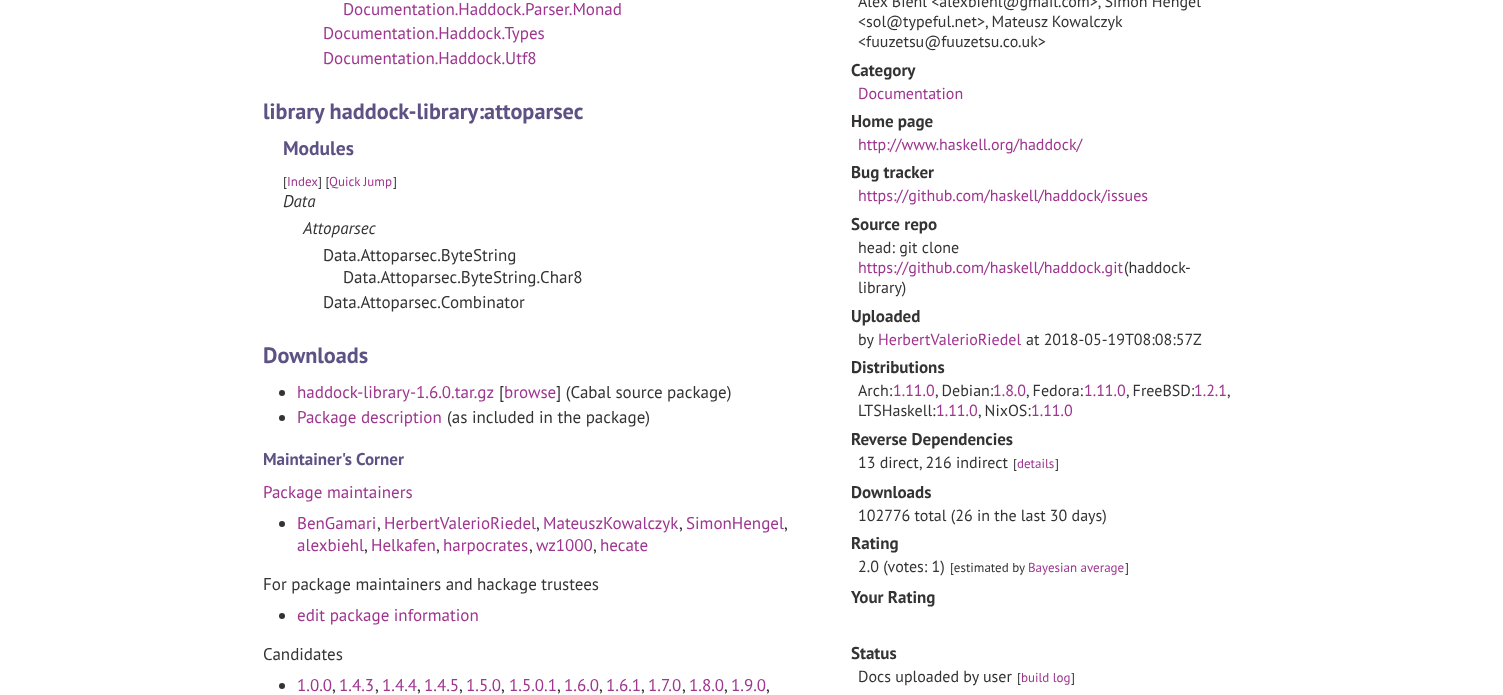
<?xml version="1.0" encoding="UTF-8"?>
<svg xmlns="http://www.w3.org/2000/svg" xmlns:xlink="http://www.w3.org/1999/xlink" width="1503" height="695">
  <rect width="100%" height="100%" fill="#ffffff" />
  <circle cx="282" cy="393" r="3" fill="#333333" />
  <circle cx="282" cy="418" r="3" fill="#333333" />
  <circle cx="282" cy="524" r="3" fill="#333333" />
  <circle cx="282" cy="616" r="3" fill="#333333" />
  <circle cx="282" cy="686" r="3" fill="#333333" />
  <text x="343" y="15" style="font-family: PT Sans; font-size: 17px; fill: #9e358f">Documentation.Haddock.Parser.Monad</text>
  <text x="323" y="39" style="font-family: PT Sans; font-size: 17px; fill: #9e358f">Documentation.Haddock.Types</text>
  <text x="323" y="64" style="font-family: PT Sans; font-size: 17px; fill: #9e358f">Documentation.Haddock.Utf8</text>
  <text x="263" y="119" style="font-family: PT Sans; font-size: 22.25px; font-weight: bold; fill: #5e5184">library haddock-library:attoparsec</text>
  <text x="283" y="155" style="font-family: PT Sans; font-size: 19.5px; font-weight: bold; fill: #5e5184">Modules</text>
  <text x="283" y="186" style="font-family: PT Sans; font-size: 13px; fill: #333333">[</text>
  <text x="287" y="186" style="font-family: PT Sans; font-size: 13px; fill: #9e358f">Index</text>
  <text x="318" y="186" style="font-family: PT Sans; font-size: 13px; fill: #333333">] [</text>
  <text x="329" y="186" style="font-family: PT Sans; font-size: 13px; fill: #9e358f">Quick Jump</text>
  <text x="393" y="186" style="font-family: PT Sans; font-size: 13px; fill: #333333">]</text>
  <text x="283" y="207" style="font-family: PT Sans; font-size: 17px; font-style: italic; fill: #333333">Data</text>
  <text x="303" y="234" style="font-family: PT Sans; font-size: 17px; font-style: italic; fill: #333333">Attoparsec</text>
  <text x="323" y="261" style="font-family: PT Sans; font-size: 17px; fill: #333333">Data.Attoparsec.ByteString</text>
  <text x="343" y="283" style="font-family: PT Sans; font-size: 17px; fill: #333333">Data.Attoparsec.ByteString.Char8</text>
  <text x="323" y="308" style="font-family: PT Sans; font-size: 17px; fill: #333333">Data.Attoparsec.Combinator</text>
  <text x="263" y="363" style="font-family: PT Sans; font-size: 22.25px; font-weight: bold; fill: #5e5184">Downloads</text>
  <text x="297" y="398" style="font-family: PT Sans; font-size: 17px; fill: #9e358f">haddock-library-1.6.0.tar.gz</text>
  <text x="499" y="398" style="font-family: PT Sans; font-size: 17px; fill: #333333">[</text>
  <text x="504" y="398" style="font-family: PT Sans; font-size: 17px; fill: #9e358f">browse</text>
  <text x="556" y="398" style="font-family: PT Sans; font-size: 17px; fill: #333333">] (Cabal source package)</text>
  <text x="297" y="423" style="font-family: PT Sans; font-size: 17px; fill: #9e358f">Package description</text>
  <text x="447" y="423" style="font-family: PT Sans; font-size: 17px; fill: #333333">(as included in the package)</text>
  <text x="263" y="465" style="font-family: PT Sans; font-size: 17px; font-weight: bold; fill: #5e5184">Maintainer's Corner</text>
  <text x="263" y="498" style="font-family: PT Sans; font-size: 17px; fill: #9e358f">Package maintainers</text>
  <text x="297" y="529" style="font-family: PT Sans; font-size: 17px; fill: #9e358f">BenGamari</text>
  <text x="384" y="529" style="font-family: PT Sans; font-size: 17px; fill: #9e358f">HerbertValerioRiedel</text>
  <text x="543" y="529" style="font-family: PT Sans; font-size: 17px; fill: #9e358f">MateuszKowalczyk</text>
  <text x="686" y="529" style="font-family: PT Sans; font-size: 17px; fill: #9e358f">SimonHengel</text>
  <text x="377" y="529" style="font-family: PT Sans; font-size: 17px; fill: #333333">,</text>
  <text x="536" y="529" style="font-family: PT Sans; font-size: 17px; fill: #333333">,</text>
  <text x="679" y="529" style="font-family: PT Sans; font-size: 17px; fill: #333333">,</text>
  <text x="784" y="529" style="font-family: PT Sans; font-size: 17px; fill: #333333">,</text>
  <text x="297" y="551" style="font-family: PT Sans; font-size: 17px; fill: #9e358f">alexbiehl</text>
  <text x="364" y="551" style="font-family: PT Sans; font-size: 17px; fill: #333333">,</text>
  <text x="371" y="551" style="font-family: PT Sans; font-size: 17px; fill: #9e358f">Helkafen</text>
  <text x="436" y="551" style="font-family: PT Sans; font-size: 17px; fill: #333333">,</text>
  <text x="443" y="551" style="font-family: PT Sans; font-size: 17px; fill: #9e358f">harpocrates</text>
  <text x="529" y="551" style="font-family: PT Sans; font-size: 17px; fill: #333333">,</text>
  <text x="536" y="551" style="font-family: PT Sans; font-size: 17px; fill: #9e358f">wz1000</text>
  <text x="593" y="551" style="font-family: PT Sans; font-size: 17px; fill: #333333">,</text>
  <text x="600" y="551" style="font-family: PT Sans; font-size: 17px; fill: #9e358f">hecate</text>
  <text x="263" y="590" style="font-family: PT Sans; font-size: 17px; fill: #333333">For package maintainers and hackage trustees</text>
  <text x="297" y="621" style="font-family: PT Sans; font-size: 17px; fill: #9e358f">edit package information</text>
  <text x="263" y="660" style="font-family: PT Sans; font-size: 17px; fill: #333333">Candidates</text>
  <text x="297" y="691" style="font-family: PT Sans; font-size: 17px; fill: #9e358f">1.0.0</text>
  <text x="339" y="691" style="font-family: PT Sans; font-size: 17px; fill: #9e358f">1.4.3</text>
  <text x="382" y="691" style="font-family: PT Sans; font-size: 17px; fill: #9e358f">1.4.4</text>
  <text x="424" y="691" style="font-family: PT Sans; font-size: 17px; fill: #9e358f">1.4.5</text>
  <text x="466" y="691" style="font-family: PT Sans; font-size: 17px; fill: #9e358f">1.5.0</text>
  <text x="509" y="691" style="font-family: PT Sans; font-size: 17px; fill: #9e358f">1.5.0.1</text>
  <text x="564" y="691" style="font-family: PT Sans; font-size: 17px; fill: #9e358f">1.6.0</text>
  <text x="606" y="691" style="font-family: PT Sans; font-size: 17px; fill: #9e358f">1.6.1</text>
  <text x="648" y="691" style="font-family: PT Sans; font-size: 17px; fill: #9e358f">1.7.0</text>
  <text x="689" y="691" style="font-family: PT Sans; font-size: 17px; fill: #9e358f">1.8.0</text>
  <text x="731" y="691" style="font-family: PT Sans; font-size: 17px; fill: #9e358f">1.9.0</text>
  <text x="332" y="691" style="font-family: PT Sans; font-size: 17px; fill: #333333">,</text>
  <text x="375" y="691" style="font-family: PT Sans; font-size: 17px; fill: #333333">,</text>
  <text x="417" y="691" style="font-family: PT Sans; font-size: 17px; fill: #333333">,</text>
  <text x="459" y="691" style="font-family: PT Sans; font-size: 17px; fill: #333333">,</text>
  <text x="501" y="691" style="font-family: PT Sans; font-size: 17px; fill: #333333">,</text>
  <text x="557" y="691" style="font-family: PT Sans; font-size: 17px; fill: #333333">,</text>
  <text x="599" y="691" style="font-family: PT Sans; font-size: 17px; fill: #333333">,</text>
  <text x="641" y="691" style="font-family: PT Sans; font-size: 17px; fill: #333333">,</text>
  <text x="682" y="691" style="font-family: PT Sans; font-size: 17px; fill: #333333">,</text>
  <text x="724" y="691" style="font-family: PT Sans; font-size: 17px; fill: #333333">,</text>
  <text x="766" y="691" style="font-family: PT Sans; font-size: 17px; fill: #333333">,</text>
  <text x="858" y="7" style="font-family: PT Sans; font-size: 16px; fill: #333333">Alex Biehl &lt;alexbiehl@gmail.com&gt;, Simon Hengel</text>
  <text x="858" y="27" style="font-family: PT Sans; font-size: 16px; fill: #333333">&lt;sol@typeful.net&gt;, Mateusz Kowalczyk</text>
  <text x="858" y="47" style="font-family: PT Sans; font-size: 16px; fill: #333333">&lt;fuuzetsu@fuuzetsu.co.uk&gt;</text>
  <text x="851" y="76" style="font-family: PT Sans; font-size: 17px; font-weight: bold; fill: #333333">Category</text>
  <text x="858" y="99" style="font-family: PT Sans; font-size: 16px; fill: #9e358f">Documentation</text>
  <text x="851" y="127" style="font-family: PT Sans; font-size: 17px; font-weight: bold; fill: #333333">Home page</text>
  <text x="858" y="150" style="font-family: PT Sans; font-size: 16px; fill: #9e358f">http://www.haskell.org/haddock/</text>
  <text x="851" y="178" style="font-family: PT Sans; font-size: 17px; font-weight: bold; fill: #333333">Bug tracker</text>
  <text x="858" y="201" style="font-family: PT Sans; font-size: 16px; fill: #9e358f">https://github.com/haskell/haddock/issues</text>
  <text x="851" y="230" style="font-family: PT Sans; font-size: 17px; font-weight: bold; fill: #333333">Source repo</text>
  <text x="858" y="253" style="font-family: PT Sans; font-size: 16px; fill: #333333">head: git clone</text>
  <text x="858" y="273" style="font-family: PT Sans; font-size: 16px; fill: #9e358f">https://github.com/haskell/haddock.git</text>
  <text x="1124" y="273" style="font-family: PT Sans; font-size: 16px; fill: #333333">(haddock-</text>
  <text x="858" y="293" style="font-family: PT Sans; font-size: 16px; fill: #333333">library)</text>
  <text x="851" y="322" style="font-family: PT Sans; font-size: 17px; font-weight: bold; fill: #333333">Uploaded</text>
  <text x="858" y="345" style="font-family: PT Sans; font-size: 16px; fill: #333333">by</text>
  <text x="878" y="345" style="font-family: PT Sans; font-size: 16px; fill: #9e358f">HerbertValerioRiedel</text>
  <text x="1026" y="345" style="font-family: PT Sans; font-size: 16px; fill: #333333">at 2018-05-19T08:08:57Z</text>
  <text x="851" y="373" style="font-family: PT Sans; font-size: 17px; font-weight: bold; fill: #333333">Distributions</text>
  <text x="858" y="396" style="font-family: PT Sans; font-size: 16px; fill: #333333">Arch:</text>
  <text x="893" y="396" style="font-family: PT Sans; font-size: 16px; fill: #9e358f">1.11.0</text>
  <text x="935" y="396" style="font-family: PT Sans; font-size: 16px; fill: #333333">, Debian:</text>
  <text x="993" y="396" style="font-family: PT Sans; font-size: 16px; fill: #9e358f">1.8.0</text>
  <text x="1026" y="396" style="font-family: PT Sans; font-size: 16px; fill: #333333">, Fedora:</text>
  <text x="1084" y="396" style="font-family: PT Sans; font-size: 16px; fill: #9e358f">1.11.0</text>
  <text x="1126" y="396" style="font-family: PT Sans; font-size: 16px; fill: #333333">, FreeBSD:</text>
  <text x="1194" y="396" style="font-family: PT Sans; font-size: 16px; fill: #9e358f">1.2.1</text>
  <text x="1227" y="396" style="font-family: PT Sans; font-size: 16px; fill: #333333">,</text>
  <text x="858" y="416" style="font-family: PT Sans; font-size: 16px; fill: #333333">LTSHaskell:</text>
  <text x="936" y="416" style="font-family: PT Sans; font-size: 16px; fill: #9e358f">1.11.0</text>
  <text x="978" y="416" style="font-family: PT Sans; font-size: 16px; fill: #333333">, NixOS:</text>
  <text x="1031" y="416" style="font-family: PT Sans; font-size: 16px; fill: #9e358f">1.11.0</text>
  <text x="851" y="445" style="font-family: PT Sans; font-size: 17px; font-weight: bold; fill: #333333">Reverse Dependencies</text>
  <text x="858" y="468" style="font-family: PT Sans; font-size: 16px; fill: #333333">13 direct, 216 indirect</text>
  <text x="1013" y="468" style="font-family: PT Sans; font-size: 13px; fill: #333333">[</text>
  <text x="1017" y="468" style="font-family: PT Sans; font-size: 13px; fill: #9e358f">details</text>
  <text x="1055" y="468" style="font-family: PT Sans; font-size: 13px; fill: #333333">]</text>
  <text x="851" y="498" style="font-family: PT Sans; font-size: 17px; font-weight: bold; fill: #333333">Downloads</text>
  <text x="858" y="521" style="font-family: PT Sans; font-size: 16px; fill: #333333">102776 total (26 in the last 30 days)</text>
  <text x="851" y="549" style="font-family: PT Sans; font-size: 17px; font-weight: bold; fill: #333333">Rating</text>
  <text x="858" y="572" style="font-family: PT Sans; font-size: 16px; fill: #333333">2.0 (votes: 1)</text>
  <text x="950" y="572" style="font-family: PT Sans; font-size: 13px; fill: #333333">[estimated by</text>
  <text x="1028" y="572" style="font-family: PT Sans; font-size: 13px; fill: #9e358f">Bayesian average</text>
  <text x="1125" y="572" style="font-family: PT Sans; font-size: 13px; fill: #333333">]</text>
  <text x="851" y="603" style="font-family: PT Sans; font-size: 17px; font-weight: bold; fill: #333333">Your Rating</text>
  <text x="851" y="659" style="font-family: PT Sans; font-size: 17px; font-weight: bold; fill: #333333">Status</text>
  <text x="858" y="682" style="font-family: PT Sans; font-size: 16px; fill: #333333">Docs uploaded by user</text>
  <text x="1017" y="682" style="font-family: PT Sans; font-size: 13px; fill: #333333">[</text>
  <text x="1021" y="682" style="font-family: PT Sans; font-size: 13px; fill: #9e358f">build log</text>
  <text x="1071" y="682" style="font-family: PT Sans; font-size: 13px; fill: #333333">]</text>
</svg>
